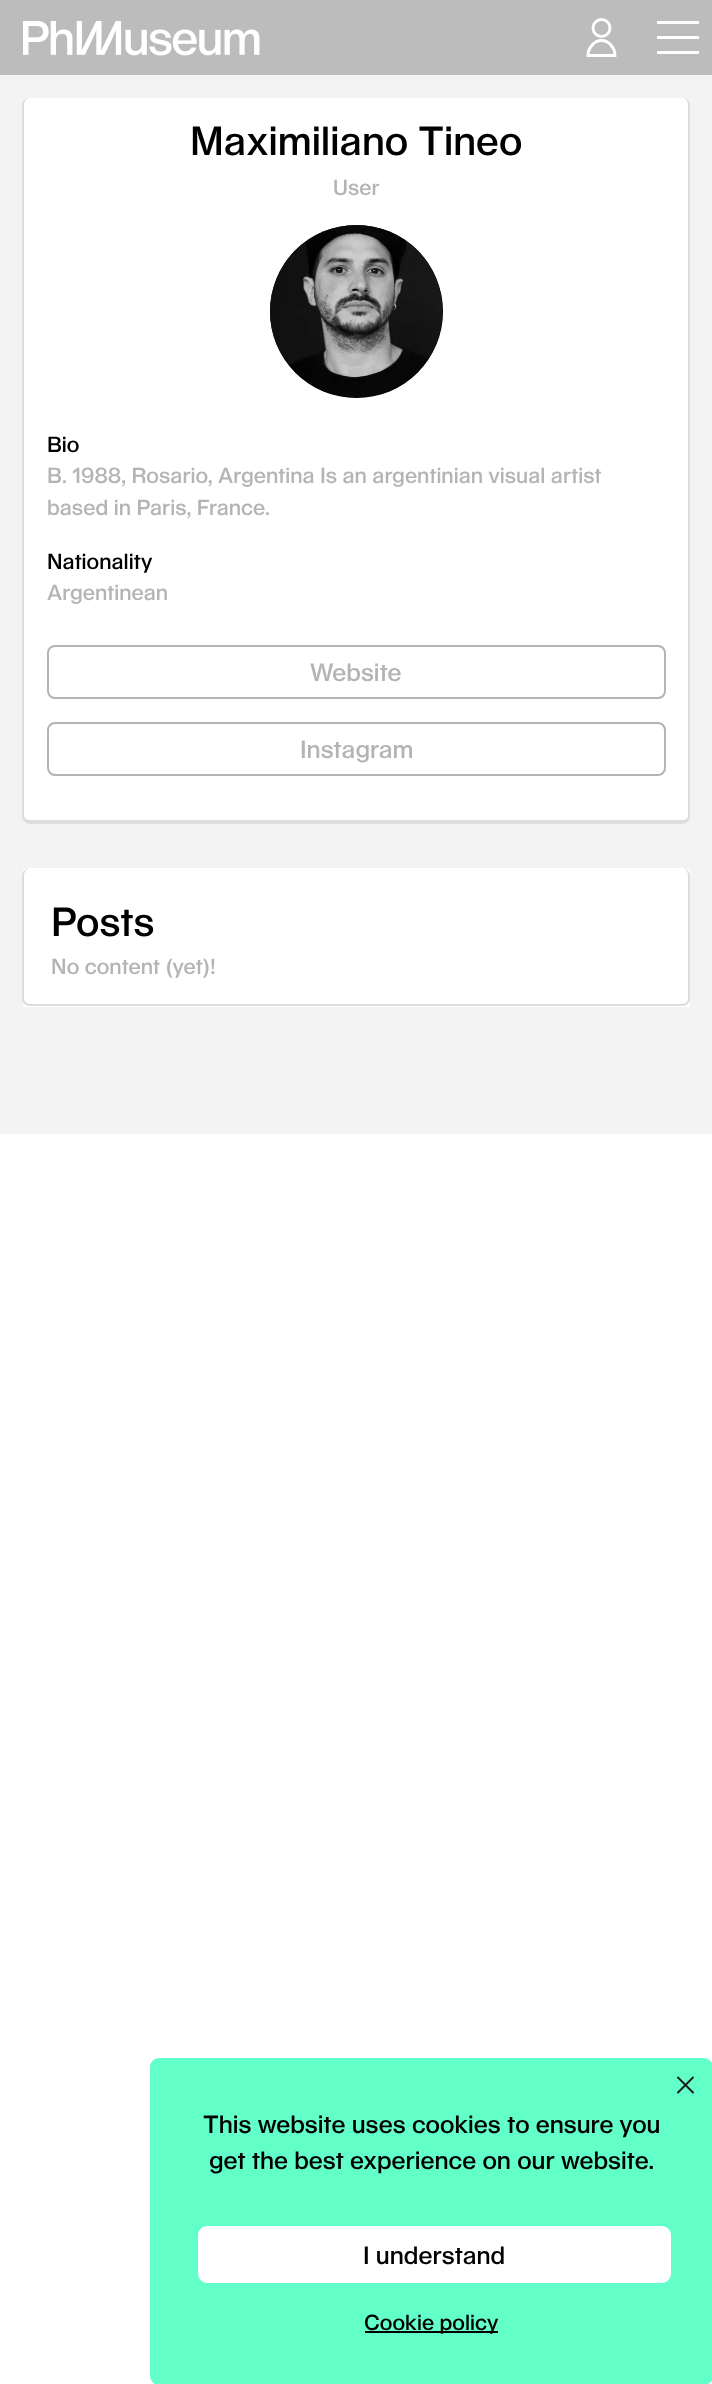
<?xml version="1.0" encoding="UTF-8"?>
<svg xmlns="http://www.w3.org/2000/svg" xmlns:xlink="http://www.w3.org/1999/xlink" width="712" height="2384">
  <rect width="100%" height="100%" fill="#ffffff" />
  <rect width="712" height="75" fill="#bcbcbc" />
  <circle cx="601.5" cy="28" r="8.5" fill="none" stroke="#ffffff" stroke-width="2.9" />
  <path d="M 615 55.5 h -27 c 0 -7.5 6 -15 13.5 -15 c 7.5 0 13.5 7.5 13.5 15 z" fill="none" stroke="#ffffff" stroke-width="2.9" />
  <image x="23" y="21" width="237" height="35" xlink:href="image1.png" />
  <rect x="657" y="21" width="42" height="3" fill="#ffffff" />
  <rect x="657" y="36" width="42" height="3" fill="#ffffff" />
  <rect x="657" y="51" width="42" height="3" fill="#ffffff" />
  <rect y="75" width="712" height="1059" fill="#f3f3f3" />
  <path d="M 30 98 h 652 c 4 0 6 3 6 7 v 711 c 0 2 -2 4 -6 4 h -652 c -3 0 -6 -2 -6 -4 v -711 c 0 -4 3 -7 6 -7 z" fill="#ffffff" />
  <path d="M 30 98 h 652 c 5 0 8 3 8 7 v 711 c 0 4 -3 8 -8 8 h -652 c -4 0 -8 -4 -8 -8 v -711 c 0 -4 4 -7 8 -7 z m 0 0 h 652 c 4 0 6 3 6 7 v 711 c 0 2 -2 4 -6 4 h -652 c -3 0 -6 -2 -6 -4 v -711 c 0 -4 3 -7 6 -7 z" fill="#dddddd" fill-rule="evenodd" />
  <circle cx="356.5" cy="311.5" r="86.5" fill="#000000" />
  <image x="270" y="225" width="173" height="173" xlink:href="image2.png" />
  <rect x="48" y="646" width="617" height="52" rx="7" fill="none" stroke="#b4b4b4" stroke-width="2" />
  <rect x="48" y="723" width="617" height="52" rx="7" fill="none" stroke="#b4b4b4" stroke-width="2" />
  <rect x="23" y="869" width="667" height="138" fill="#ffffff" />
  <path d="M 30 868 h 652 c 4 0 6 4 6 8 v 123 c 0 2 -2 5 -6 5 h -652 c -3 0 -6 -3 -6 -5 v -123 c 0 -4 3 -8 6 -8 z" fill="#ffffff" />
  <path d="M 30 868 h 652 c 5 0 8 4 8 8 v 123 c 0 4 -3 7 -8 7 h -652 c -4 0 -8 -3 -8 -7 v -123 c 0 -4 4 -8 8 -8 z m 0 0 h 652 c 4 0 6 4 6 8 v 123 c 0 2 -2 5 -6 5 h -652 c -3 0 -6 -3 -6 -5 v -123 c 0 -4 3 -8 6 -8 z" fill="#dddddd" fill-rule="evenodd" />
  <rect x="150" y="2058" width="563" height="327" rx="9" fill="#62ffc9" />
  <path d="M 678 2092.5 l 15 -15 m -15 0 l 15 15" fill="none" stroke="#1a1a1a" stroke-width="1.9" stroke-linecap="round" stroke-linejoin="round" />
  <rect x="199" y="2227" width="471" height="55" rx="8" fill="#ffffff" stroke="#ffffff" stroke-width="2" />
  <rect x="365" y="2331" width="133" height="2" fill="#000000" />
  <text x="190" y="155" style="font-family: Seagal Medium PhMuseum; font-size: 39px; font-weight: 500; fill: #000000">Maximiliano Tineo</text>
  <text x="333" y="195" style="font-family: Seagal Medium PhMuseum; font-size: 21px; font-weight: 500; fill: #b4b4b4">User</text>
  <text x="47" y="452" style="font-family: Seagal Medium PhMuseum; font-size: 21px; font-weight: 500; fill: #000000">Bio</text>
  <text x="47" y="483" style="font-family: Seagal Medium PhMuseum; font-size: 21px; font-weight: 500; fill: #b4b4b4">B. 1988, Rosario, Argentina Is an argentinian visual artist</text>
  <text x="47" y="515" style="font-family: Seagal Medium PhMuseum; font-size: 21px; font-weight: 500; fill: #b4b4b4">based in Paris, France.</text>
  <text x="47" y="569" style="font-family: Seagal Medium PhMuseum; font-size: 21px; font-weight: 500; fill: #000000">Nationality</text>
  <text x="47" y="600" style="font-family: Seagal Medium PhMuseum; font-size: 21px; font-weight: 500; fill: #b4b4b4">Argentinean</text>
  <text x="310" y="681" style="font-family: Seagal Medium PhMuseum; font-size: 24px; font-weight: 500; fill: #b4b4b4">Website</text>
  <text x="300" y="758" style="font-family: Seagal Medium PhMuseum; font-size: 24px; font-weight: 500; fill: #b4b4b4">Instagram</text>
  <text x="51" y="936" style="font-family: Seagal Medium PhMuseum; font-size: 39px; font-weight: 500; fill: #000000">Posts</text>
  <text x="51" y="974" style="font-family: Seagal Medium PhMuseum; font-size: 21px; font-weight: 500; fill: #b4b4b4">No content (yet)!</text>
  <text x="203" y="2133" style="font-family: Seagal Medium PhMuseum; font-size: 24px; font-weight: 500; fill: #000000">This website uses cookies to ensure you</text>
  <text x="209" y="2169" style="font-family: Seagal Medium PhMuseum; font-size: 24px; font-weight: 500; fill: #000000">get the best experience on our website.</text>
  <text x="363" y="2264" style="font-family: Seagal Medium PhMuseum; font-size: 24px; font-weight: 500; fill: #000000">I understand</text>
  <text x="364" y="2330" style="font-family: Seagal Medium PhMuseum; font-size: 21px; font-weight: 500; fill: #000000">Cookie policy</text>
</svg>
